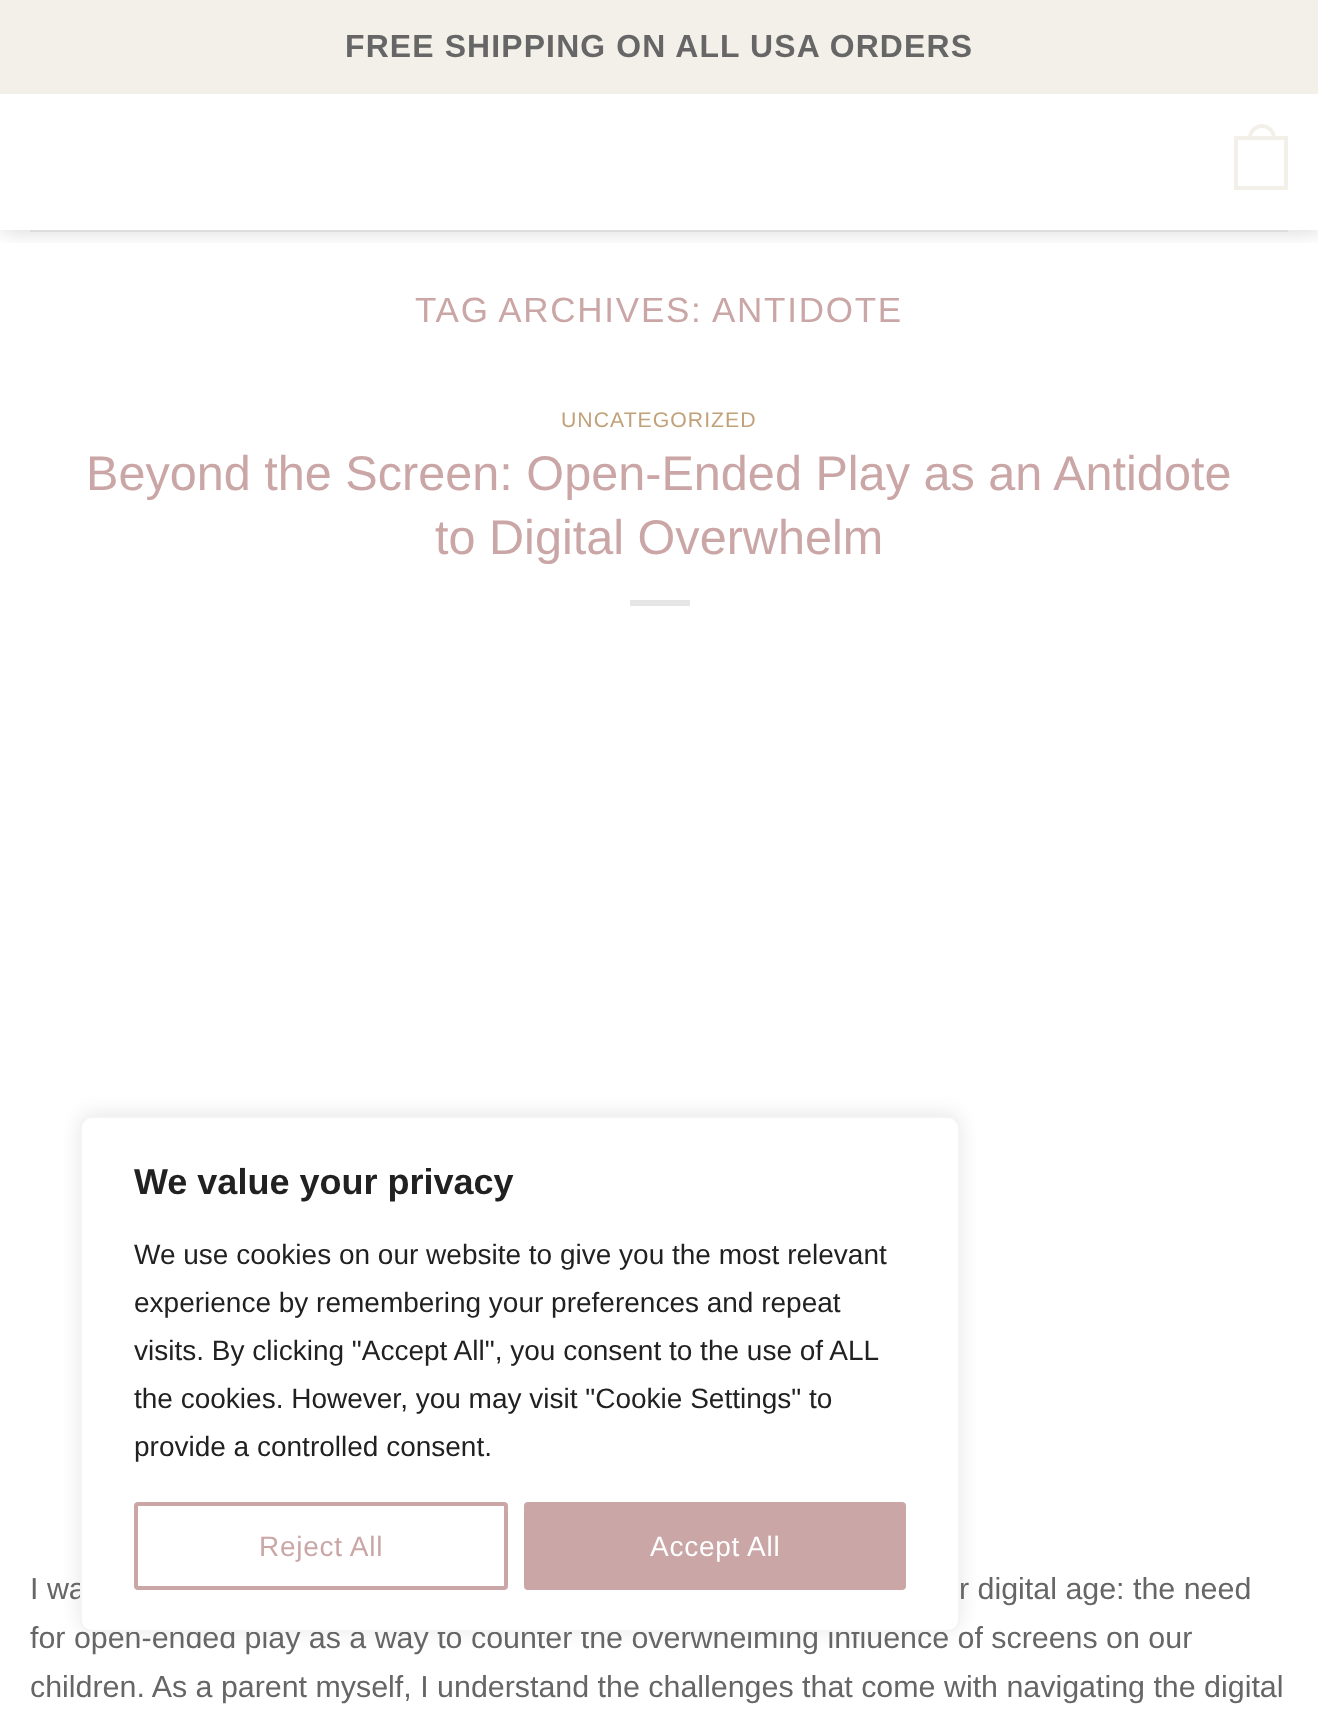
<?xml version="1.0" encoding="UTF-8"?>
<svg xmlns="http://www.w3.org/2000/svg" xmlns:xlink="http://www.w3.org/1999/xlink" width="1318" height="1712">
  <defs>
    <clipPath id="clip1"><rect x="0" y="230" width="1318" height="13" /></clipPath>
  </defs>
  <rect width="100%" height="100%" fill="#ffffff" />
  <g clip-path="url(#clip1)">
    <rect x="2" y="2" width="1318" height="230" fill="#000000" fill-opacity="0.15" filter="blur(10px)" />
  </g>
  <rect width="1318" height="94" fill="#f3f0e9" />
  <rect x="1236" y="138" width="50" height="50" fill="none" stroke="#f3f0e9" stroke-width="4" />
  <path d="M 1262 124 c 7.5 0 14 6.5 14 14 v 2 h -28 v -2 c 0 -7.5 6.5 -14 14 -14 z m 0 4 c 5.5 0 10 4.5 10 10 v 2 h -20 v -2 c 0 -5.5 4.5 -10 10 -10 z" fill="#f3f0e9" fill-rule="evenodd" />
  <rect x="30" y="230" width="1258" height="2" fill="#dddddd" />
  <rect x="630" y="600" width="60" height="6" fill="#e6e6e6" />
  <rect x="80" y="1114" width="880" height="516" rx="12" fill="#acabab" fill-opacity="0.3" filter="blur(10px)" />
  <text x="345" y="57" style="font-family: Liberation Sans; font-size: 31.9px; font-weight: bold; letter-spacing: 1.15px; fill: #666666">FREE SHIPPING ON ALL USA ORDERS</text>
  <text x="415" y="322" word-spacing="-1" style="font-family: Liberation Sans; font-size: 35px; letter-spacing: 1.75px; fill: #caa7a6">TAG ARCHIVES:</text>
  <text x="712" y="322" style="font-family: Liberation Sans; font-size: 35px; letter-spacing: 1.75px; fill: #caa7a6">ANTIDOTE</text>
  <text x="561" y="427" style="font-family: Liberation Sans; font-size: 21.25px; letter-spacing: 1px; fill: #c1a179">UNCATEGORIZED</text>
  <text x="86" y="490" style="font-family: Liberation Sans; font-size: 48.6px; fill: #caa7a6">Beyond the Screen: Open-Ended Play as an Antidote</text>
  <text x="435" y="554" style="font-family: Liberation Sans; font-size: 48.6px; fill: #caa7a6">to Digital Overwhelm</text>
  <text x="30" y="1599" style="font-family: Liberation Sans; font-size: 30.4px; fill: #666666">I wa</text>
  <text x="959" y="1599" style="font-family: Liberation Sans; font-size: 30.4px; fill: #666666">r digital age: the need</text>
  <text x="30" y="1648" style="font-family: Liberation Sans; font-size: 30.4px; fill: #666666">for open-ended play as a way to counter the overwhelming influence of screens on our</text>
  <text x="30" y="1697" style="font-family: Liberation Sans; font-size: 30.4px; fill: #666666">children. As a parent myself, I understand the challenges that come with navigating the digital</text>
  <rect x="81" y="1117" width="878" height="514" rx="11" fill="#ffffff" stroke="#f4f4f4" stroke-width="2" />
  <text x="134" y="1194" style="font-family: Liberation Sans; font-size: 36px; font-weight: bold; fill: #212121">We value your privacy</text>
  <text x="134" y="1264" style="font-family: Liberation Sans; font-size: 28px; fill: #212121">We use cookies on our website to give you the most relevant</text>
  <text x="134" y="1312" style="font-family: Liberation Sans; font-size: 28px; fill: #212121">experience by remembering your preferences and repeat</text>
  <text x="134" y="1360" style="font-family: Liberation Sans; font-size: 28px; fill: #212121">visits. By clicking "Accept All", you consent to the use of ALL</text>
  <text x="134" y="1408" style="font-family: Liberation Sans; font-size: 28px; fill: #212121">the cookies. However, you may visit "Cookie Settings" to</text>
  <text x="134" y="1456" style="font-family: Liberation Sans; font-size: 28px; fill: #212121">provide a controlled consent.</text>
  <rect x="136" y="1504" width="370" height="84" rx="2" fill="none" stroke="#caa7a6" stroke-width="4" />
  <text x="259" y="1556" style="font-family: Liberation Sans; font-size: 28px; letter-spacing: 0.75px; fill: #caa7a6">Reject All</text>
  <rect x="526" y="1504" width="378" height="84" rx="2" fill="#caa7a6" stroke="#caa7a6" stroke-width="4" />
  <text x="650" y="1556" style="font-family: Liberation Sans; font-size: 28px; letter-spacing: 0.75px; fill: #ffffff">Accept All</text>
</svg>
